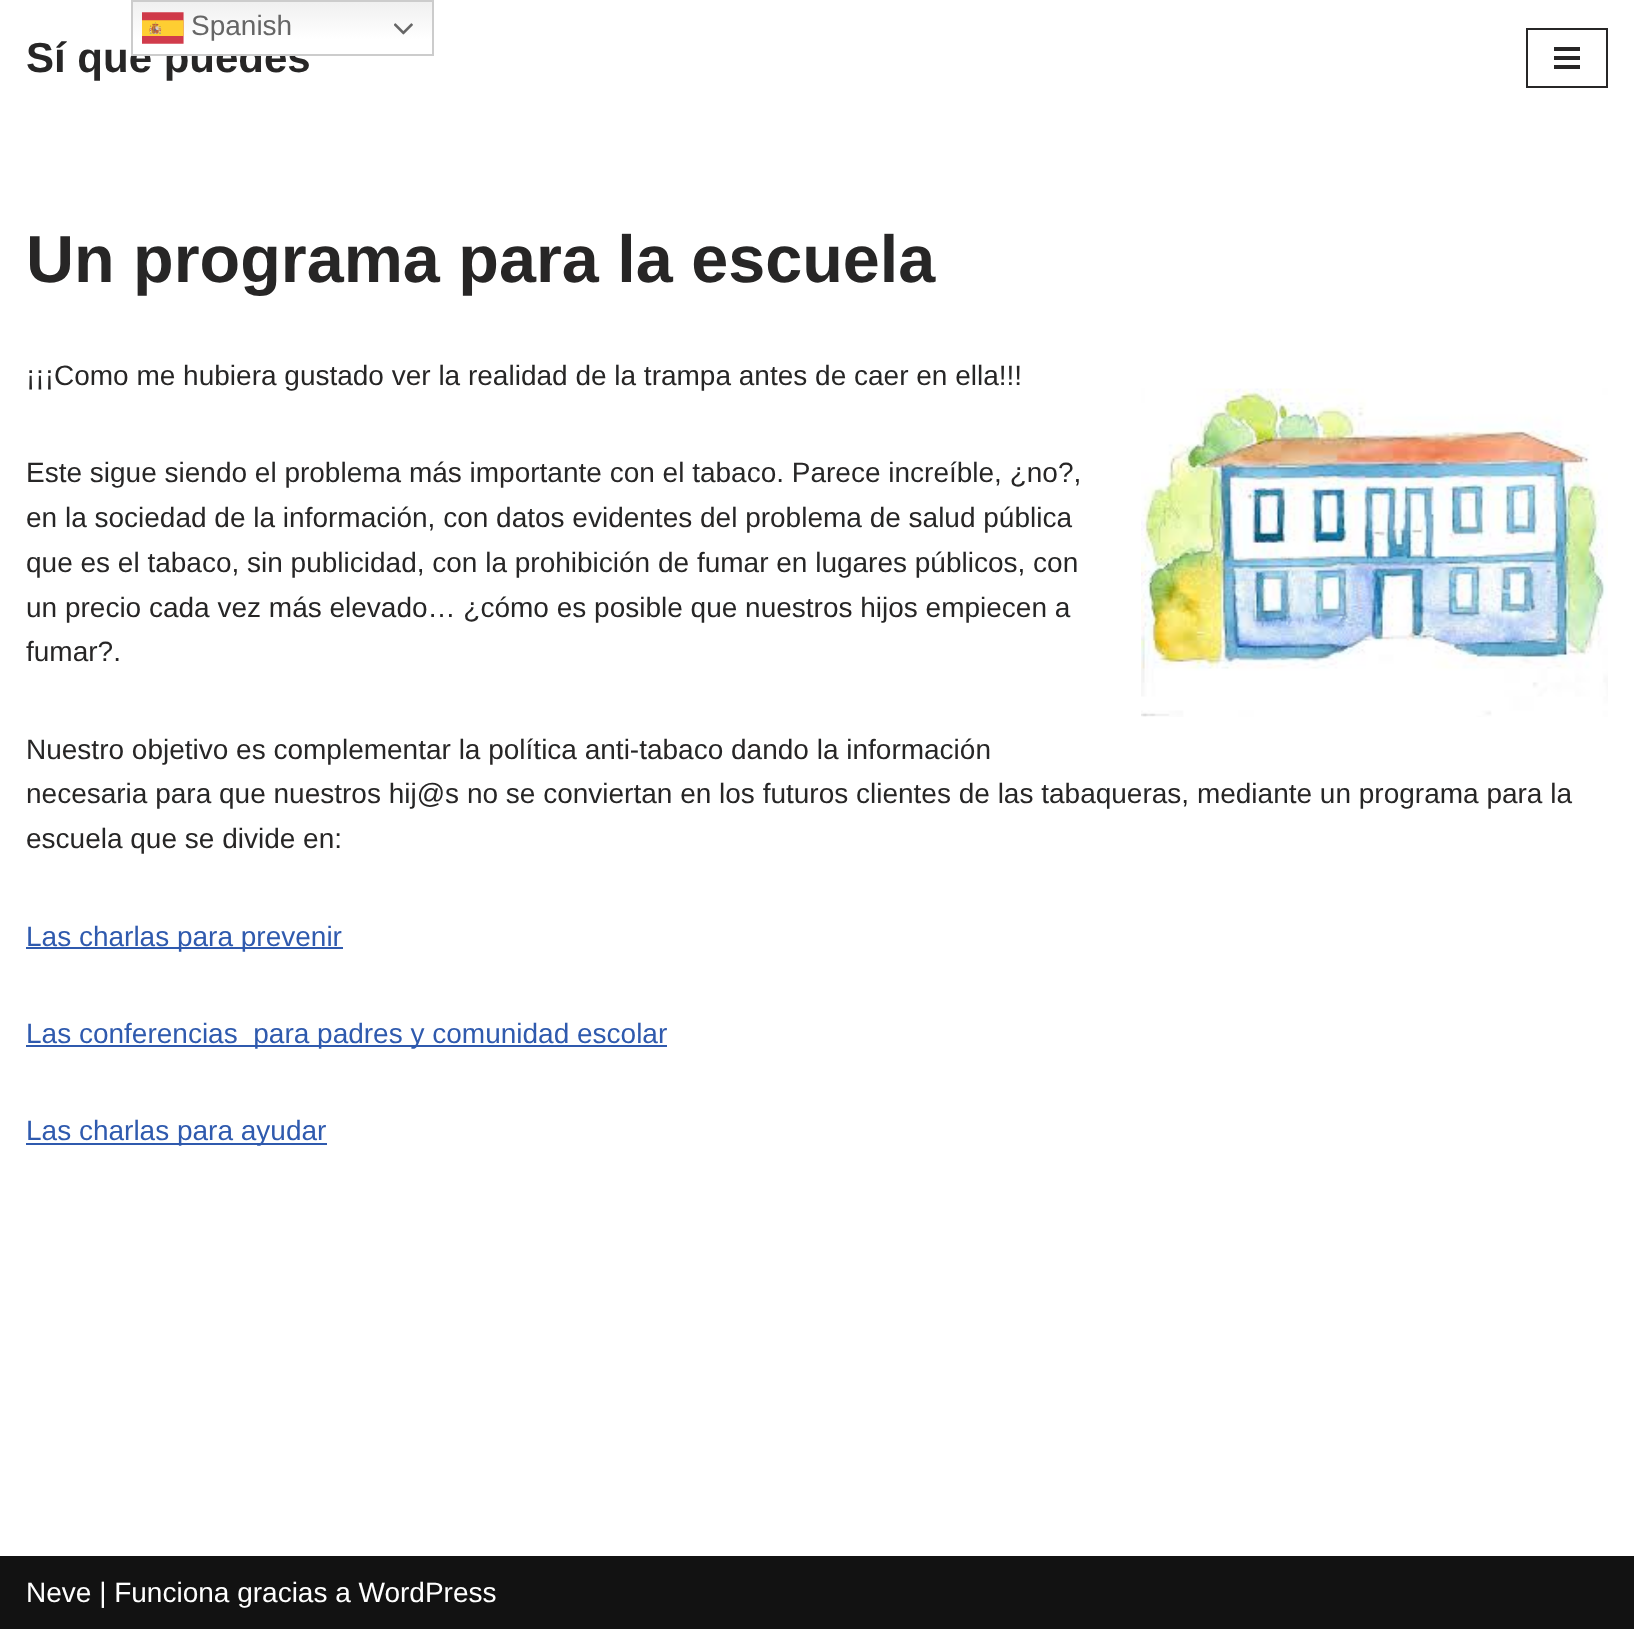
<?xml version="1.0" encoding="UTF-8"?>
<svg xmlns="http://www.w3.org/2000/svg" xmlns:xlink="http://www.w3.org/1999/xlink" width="1634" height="1629">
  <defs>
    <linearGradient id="g1" gradientUnits="userSpaceOnUse" x1="283" y1="0" x2="283" y2="56"><stop offset="0" stop-color="#efefef" /><stop offset="0.7" stop-color="#ffffff" /></linearGradient>
  </defs>
  <rect width="100%" height="100%" fill="#ffffff" />
  <rect x="1527" y="29" width="80" height="58" fill="none" stroke="#272626" stroke-width="2" />
  <rect x="1554" y="47" width="26" height="4" fill="#272626" />
  <rect x="1554" y="56" width="26" height="4" fill="#272626" />
  <rect x="1554" y="65" width="26" height="4" fill="#272626" />
  <image x="1141" y="388" width="467" height="329" xlink:href="image3.png" />
  <rect x="26" y="947" width="317" height="2" fill="#2f5aae" />
  <rect x="26" y="1045" width="641" height="2" fill="#2f5aae" />
  <rect x="26" y="1143" width="301" height="2" fill="#2f5aae" />
  <rect y="1556" width="1634" height="73" fill="#121212" />
  <text x="26" y="72" style="font-family: Liberation Sans; font-size: 42px; font-weight: bold; fill: #272626">Sí que puedes</text>
  <rect x="133" y="2" width="299" height="52" fill="url(#g1)" />
  <rect x="132" y="1" width="301" height="54" fill="none" stroke="#cccccc" stroke-width="2" />
  <image x="394" y="23" width="19" height="12" xlink:href="image2.png" />
  <image x="142" y="12" width="42" height="32" xlink:href="image1.png" />
  <text x="191" y="35" style="font-family: Liberation Sans; font-size: 28px; fill: #666666">Spanish</text>
  <text x="26" y="282" style="font-family: Liberation Sans; font-size: 66.5px; font-weight: bold; fill: #272626">Un programa para la escuela</text>
  <text x="26" y="385" style="font-family: Liberation Sans; font-size: 28px; fill: #272626">¡¡¡Como me hubiera gustado ver la realidad de la trampa antes de caer en ella!!!</text>
  <text x="26" y="482" style="font-family: Liberation Sans; font-size: 28px; fill: #272626">Este sigue siendo el problema más importante con el tabaco. Parece increíble, ¿no?,</text>
  <text x="26" y="527" style="font-family: Liberation Sans; font-size: 28px; fill: #272626">en la sociedad de la información, con datos evidentes del problema de salud pública</text>
  <text x="26" y="572" style="font-family: Liberation Sans; font-size: 28px; fill: #272626">que es el tabaco, sin publicidad, con la prohibición de fumar en lugares públicos, con</text>
  <text x="26" y="617" style="font-family: Liberation Sans; font-size: 28px; fill: #272626">un precio cada vez más elevado… ¿cómo es posible que nuestros hijos empiecen a</text>
  <text x="26" y="661" style="font-family: Liberation Sans; font-size: 28px; fill: #272626">fumar?.</text>
  <text x="26" y="759" style="font-family: Liberation Sans; font-size: 28px; fill: #272626">Nuestro objetivo es complementar la política anti-tabaco dando la información</text>
  <text x="26" y="803" style="font-family: Liberation Sans; font-size: 28px; fill: #272626">necesaria para que nuestros hij@s no se conviertan en los futuros clientes de las tabaqueras, mediante un programa para la</text>
  <text x="26" y="848" style="font-family: Liberation Sans; font-size: 28px; fill: #272626">escuela que se divide en:</text>
  <text x="26" y="946" style="font-family: Liberation Sans; font-size: 28px; fill: #2f5aae">Las charlas para prevenir</text>
  <text x="26" y="1043" style="font-family: Liberation Sans; font-size: 28px; fill: #2f5aae" xml:space="preserve">Las conferencias  para padres y comunidad escolar</text>
  <text x="26" y="1140" style="font-family: Liberation Sans; font-size: 28px; fill: #2f5aae">Las charlas para ayudar</text>
  <text x="26" y="1602" style="font-family: Liberation Sans; font-size: 28px; fill: #ffffff">Neve | Funciona gracias a WordPress</text>
</svg>
